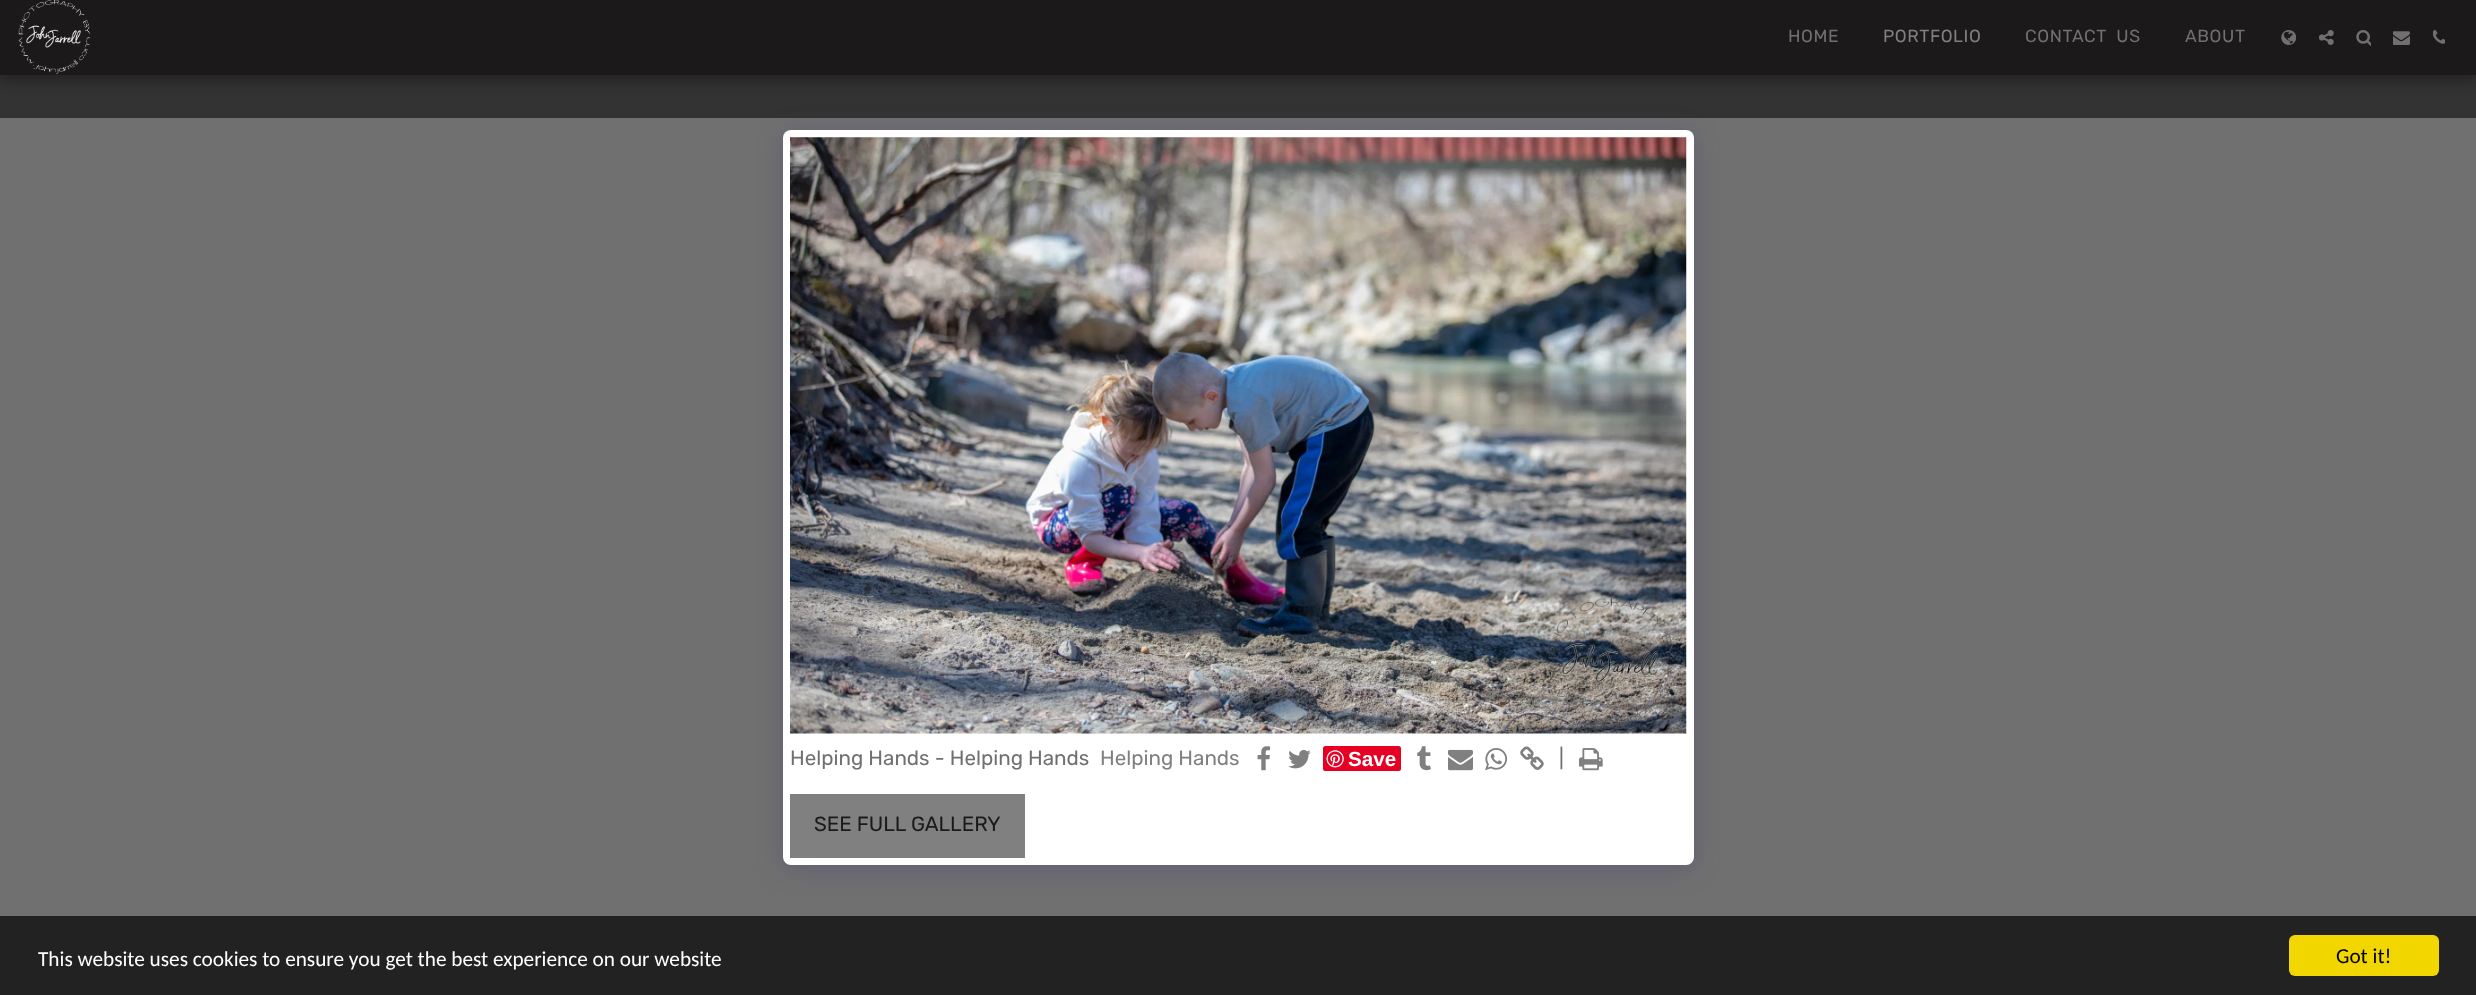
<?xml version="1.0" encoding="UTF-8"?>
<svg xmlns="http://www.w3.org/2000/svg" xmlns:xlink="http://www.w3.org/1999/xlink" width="2476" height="995">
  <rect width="100%" height="100%" fill="#707070" />
  <rect y="75" width="2476" height="43" fill="#333333" />
  <rect x="-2" width="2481" height="80" fill="#000000" fill-opacity="0.35" filter="blur(7.5px)" />
  <rect width="2476" height="75" fill="#1b1919" />
  <image x="18" y="0" width="72" height="74" xlink:href="image1.png" />
  <image x="2281" y="30" width="15" height="15" xlink:href="image2.png" />
  <image x="2319" y="30" width="15" height="15" xlink:href="image3.png" />
  <image x="2356" y="30" width="15" height="16" xlink:href="image4.png" />
  <image x="2393" y="31" width="17" height="14" xlink:href="image5.png" />
  <image x="2433" y="30" width="12" height="14" xlink:href="image6.png" />
  <rect x="783" y="134" width="911" height="735" rx="8" fill="#4d3f7a" fill-opacity="0.4" filter="blur(12.5px)" />
  <rect x="783" y="130" width="911" height="735" rx="8" fill="#ffffff" />
  <image x="790" y="137" width="897" height="597" xlink:href="image7.png" />
  <image x="1257" y="746" width="14" height="25" xlink:href="image8.png" />
  <image x="1288" y="750" width="23" height="19" xlink:href="image9.png" />
  <rect x="1323" y="746" width="78" height="25" rx="2.5" fill="#e60023" />
  <image x="1326" y="750" width="18" height="18" xlink:href="image10.png" />
  <image x="1417" y="746" width="14" height="25" xlink:href="image11.png" />
  <image x="1448" y="749" width="25" height="22" xlink:href="image12.png" />
  <image x="1485" y="748" width="23" height="23" xlink:href="image13.png" />
  <image x="1520" y="746" width="24" height="24" xlink:href="image14.png" />
  <image x="1579" y="748" width="24" height="23" xlink:href="image15.png" />
  <rect x="790" y="794" width="235" height="64" fill="#808080" />
  <rect y="916" width="2476" height="79" fill="#222222" />
  <rect x="2289" y="935" width="150" height="41" rx="6" fill="#f1d600" />
  <text x="1788" y="42" style="font-family: Rubik; font-size: 17.5px; letter-spacing: 0.6px; fill: #707070">HOME</text>
  <text x="1883" y="42" style="font-family: Rubik; font-size: 17.5px; letter-spacing: 0.6px; fill: #808080">PORTFOLIO</text>
  <text x="2025" y="42" style="font-family: Rubik; font-size: 17.5px; letter-spacing: 0.6px; fill: #707070" xml:space="preserve">CONTACT  US</text>
  <text x="2185" y="42" style="font-family: Rubik; font-size: 17.5px; letter-spacing: 0.6px; fill: #707070">ABOUT</text>
  <text x="790" y="765" style="font-family: Rubik; font-size: 20.6px; fill: #707070">Helping Hands - Helping Hands</text>
  <text x="1100" y="765" style="font-family: Rubik; font-size: 20.6px; fill: #808080">Helping Hands</text>
  <text x="1348" y="766" style="font-family: Liberation Sans; font-size: 20.6px; font-weight: bold; fill: #ffffff">Save</text>
  <text x="1559" y="765" style="font-family: Rubik; font-size: 20.6px; fill: #707070">|</text>
  <text x="814" y="831" style="font-family: Rubik; font-size: 20.6px; fill: #1b1919">SEE FULL GALLERY</text>
  <text x="38" y="966" style="font-family: Carlito; font-size: 21.25px; fill: #ffffff">This website uses cookies to ensure you get the best experience on our website</text>
  <text x="2336" y="963" style="font-family: Carlito; font-size: 21.25px; fill: #000000">Got it!</text>
</svg>
